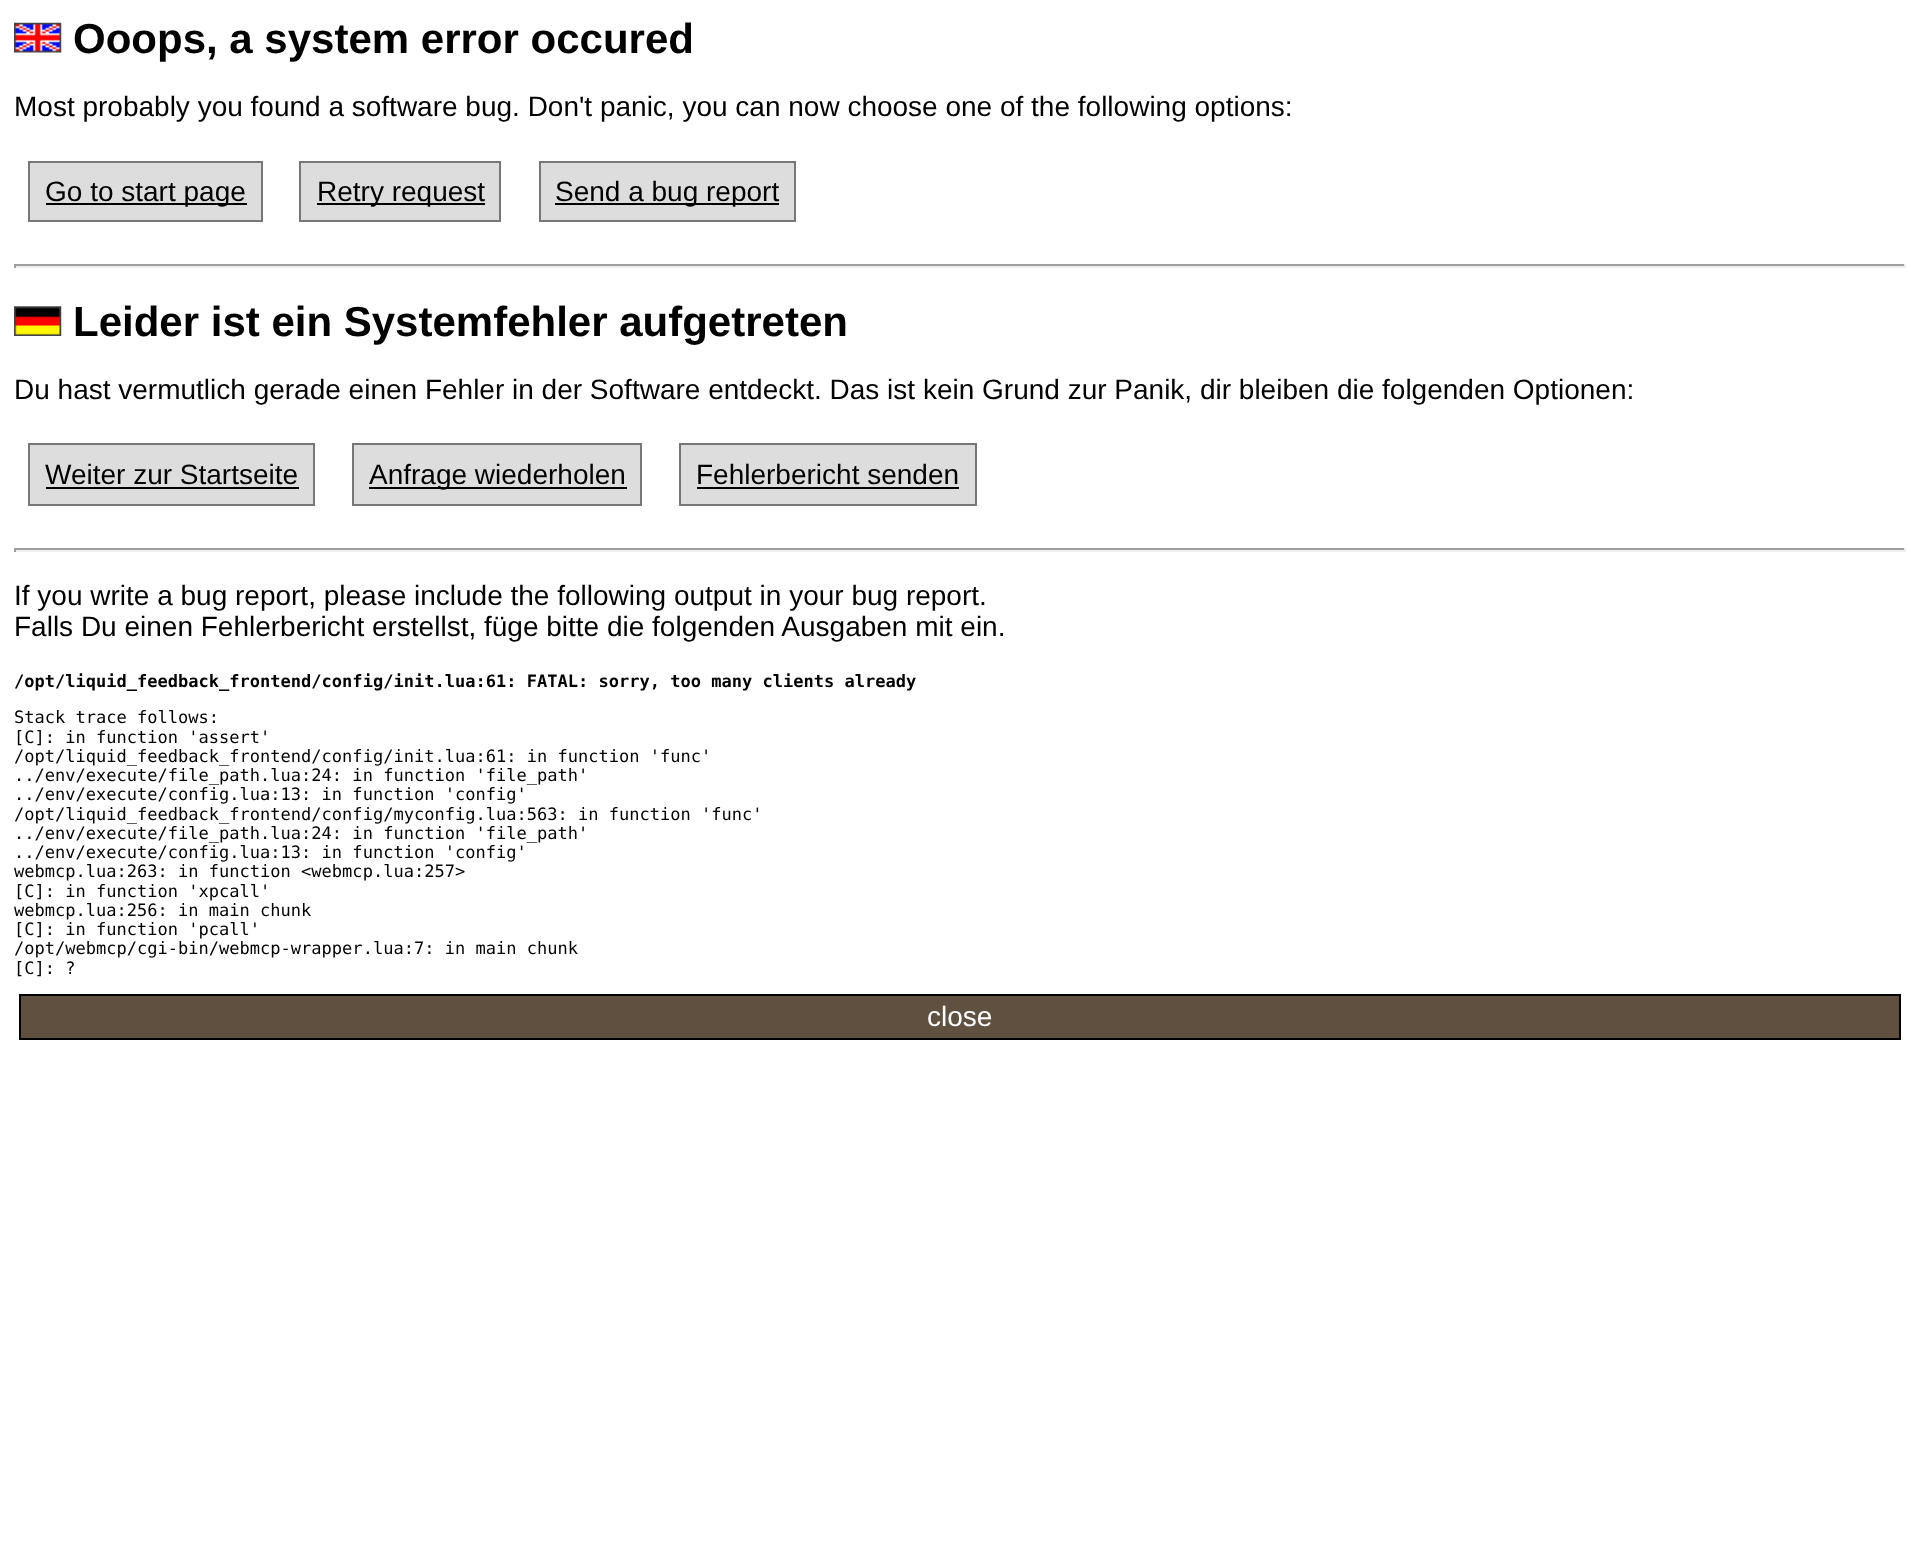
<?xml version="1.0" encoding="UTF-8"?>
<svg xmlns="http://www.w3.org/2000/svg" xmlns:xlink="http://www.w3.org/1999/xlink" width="1919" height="1565">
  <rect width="100%" height="100%" fill="#ffffff" />
  <image x="14" y="22" width="48" height="31" xlink:href="image1.png" />
  <rect x="29" y="162" width="233" height="59" fill="#dddddd" stroke="#777777" stroke-width="2" />
  <rect x="46" y="203" width="201" height="2" fill="#000000" />
  <rect x="300" y="162" width="200" height="59" fill="#dddddd" stroke="#777777" stroke-width="2" />
  <rect x="317" y="203" width="168" height="2" fill="#000000" />
  <rect x="540" y="162" width="255" height="59" fill="#dddddd" stroke="#777777" stroke-width="2" />
  <rect x="555" y="203" width="224" height="2" fill="#000000" />
  <rect x="14" y="264" width="1892" height="2" fill="#9f9f9f" />
  <rect x="1904" y="264" width="2" height="4" fill="#eeeeee" />
  <rect x="14" y="266" width="1892" height="2" fill="#eeeeee" />
  <rect x="14" y="264" width="2" height="4" fill="#9f9f9f" />
  <image x="14" y="306" width="48" height="30" xlink:href="image2.png" />
  <rect x="29" y="444" width="285" height="61" fill="#dddddd" stroke="#777777" stroke-width="2" />
  <rect x="46" y="487" width="253" height="2" fill="#000000" />
  <rect x="353" y="444" width="288" height="61" fill="#dddddd" stroke="#777777" stroke-width="2" />
  <rect x="369" y="487" width="258" height="2" fill="#000000" />
  <rect x="680" y="444" width="296" height="61" fill="#dddddd" stroke="#777777" stroke-width="2" />
  <rect x="697" y="487" width="262" height="2" fill="#000000" />
  <rect x="14" y="548" width="1892" height="2" fill="#9f9f9f" />
  <rect x="1904" y="548" width="2" height="4" fill="#eeeeee" />
  <rect x="14" y="550" width="1892" height="2" fill="#eeeeee" />
  <rect x="14" y="548" width="2" height="4" fill="#9f9f9f" />
  <rect x="20" y="995" width="1880" height="44" fill="#605040" stroke="#000000" stroke-width="2" />
  <text x="73" y="53" style="font-family: Liberation Sans; font-size: 42px; font-weight: bold; fill: #000000">Ooops, a system error occured</text>
  <text x="14" y="116" style="font-family: Liberation Sans; font-size: 28px; fill: #000000">Most probably you found a software bug. Don't panic, you can now choose one of the following options:</text>
  <text x="45" y="201" style="font-family: Liberation Sans; font-size: 28px; fill: #000000">Go to start page</text>
  <text x="317" y="201" style="font-family: Liberation Sans; font-size: 28px; fill: #000000">Retry request</text>
  <text x="555" y="201" style="font-family: Liberation Sans; font-size: 28px; fill: #000000">Send a bug report</text>
  <text x="73" y="336" style="font-family: Liberation Sans; font-size: 42px; font-weight: bold; fill: #000000">Leider ist ein Systemfehler aufgetreten</text>
  <text x="14" y="399" style="font-family: Liberation Sans; font-size: 28px; fill: #000000">Du hast vermutlich gerade einen Fehler in der Software entdeckt. Das ist kein Grund zur Panik, dir bleiben die folgenden Optionen:</text>
  <text x="45" y="484" style="font-family: Liberation Sans; font-size: 28px; fill: #000000">Weiter zur Startseite</text>
  <text x="369" y="484" style="font-family: Liberation Sans; font-size: 28px; fill: #000000">Anfrage wiederholen</text>
  <text x="696" y="484" style="font-family: Liberation Sans; font-size: 28px; fill: #000000">Fehlerbericht senden</text>
  <text x="14" y="605" style="font-family: Liberation Sans; font-size: 28px; fill: #000000">If you write a bug report, please include the following output in your bug report.</text>
  <text x="14" y="636" style="font-family: Liberation Sans; font-size: 28px; fill: #000000">Falls Du einen Fehlerbericht erstellst, füge bitte die folgenden Ausgaben mit ein.</text>
  <text x="14" y="687" style="font-family: DejaVu Sans Mono; font-size: 17.05px; font-weight: bold; fill: #000000">/opt/liquid_feedback_frontend/config/init.lua:61: FATAL: sorry, too many clients already</text>
  <text x="14" y="723" style="font-family: DejaVu Sans Mono; font-size: 17.05px; fill: #000000">Stack trace follows:</text>
  <text x="14" y="743" style="font-family: DejaVu Sans Mono; font-size: 17.05px; fill: #000000">[C]: in function 'assert'</text>
  <text x="14" y="762" style="font-family: DejaVu Sans Mono; font-size: 17.05px; fill: #000000">/opt/liquid_feedback_frontend/config/init.lua:61: in function 'func'</text>
  <text x="14" y="781" style="font-family: DejaVu Sans Mono; font-size: 17.05px; fill: #000000">../env/execute/file_path.lua:24: in function 'file_path'</text>
  <text x="14" y="800" style="font-family: DejaVu Sans Mono; font-size: 17.05px; fill: #000000">../env/execute/config.lua:13: in function 'config'</text>
  <text x="14" y="820" style="font-family: DejaVu Sans Mono; font-size: 17.05px; fill: #000000">/opt/liquid_feedback_frontend/config/myconfig.lua:563: in function 'func'</text>
  <text x="14" y="839" style="font-family: DejaVu Sans Mono; font-size: 17.05px; fill: #000000">../env/execute/file_path.lua:24: in function 'file_path'</text>
  <text x="14" y="858" style="font-family: DejaVu Sans Mono; font-size: 17.05px; fill: #000000">../env/execute/config.lua:13: in function 'config'</text>
  <text x="14" y="877" style="font-family: DejaVu Sans Mono; font-size: 17.05px; fill: #000000">webmcp.lua:263: in function &lt;webmcp.lua:257&gt;</text>
  <text x="14" y="897" style="font-family: DejaVu Sans Mono; font-size: 17.05px; fill: #000000">[C]: in function 'xpcall'</text>
  <text x="14" y="916" style="font-family: DejaVu Sans Mono; font-size: 17.05px; fill: #000000">webmcp.lua:256: in main chunk</text>
  <text x="14" y="935" style="font-family: DejaVu Sans Mono; font-size: 17.05px; fill: #000000">[C]: in function 'pcall'</text>
  <text x="14" y="954" style="font-family: DejaVu Sans Mono; font-size: 17.05px; fill: #000000">/opt/webmcp/cgi-bin/webmcp-wrapper.lua:7: in main chunk</text>
  <text x="14" y="974" style="font-family: DejaVu Sans Mono; font-size: 17.05px; fill: #000000">[C]: ?</text>
  <text x="927" y="1026" style="font-family: Liberation Sans; font-size: 28px; fill: #ffffff">close</text>
</svg>
